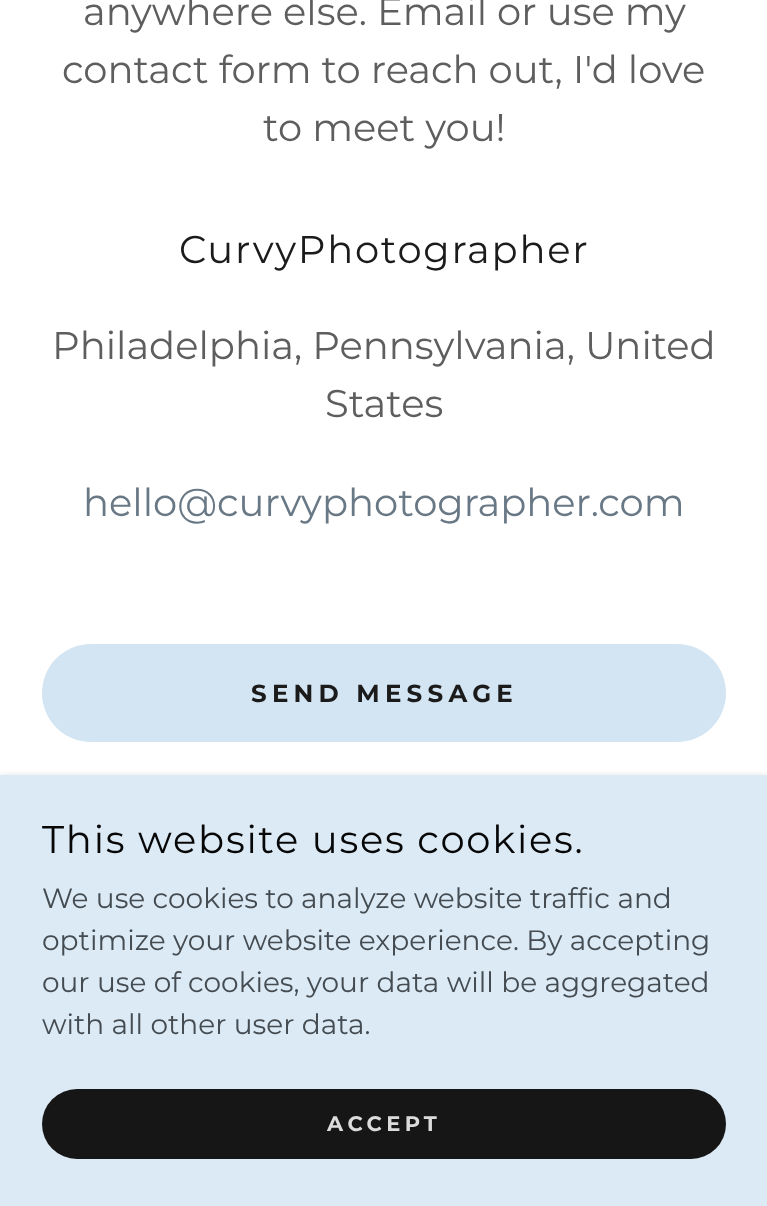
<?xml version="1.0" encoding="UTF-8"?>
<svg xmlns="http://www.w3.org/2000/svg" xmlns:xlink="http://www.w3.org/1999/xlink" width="767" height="1206">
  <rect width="100%" height="100%" fill="#ffffff" />
  <rect x="42" y="644" width="684" height="98" rx="49" fill="#d3e5f2" />
  <rect y="779" width="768" height="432" fill="#000000" fill-opacity="0.3" filter="blur(5px)" />
  <rect y="775" width="767" height="431" fill="#dceaf5" />
  <rect x="42" y="1089" width="684" height="70" rx="35" fill="#161616" />
  <text x="83" y="25" style="font-family: Montserrat; font-size: 38.5px; fill: #5e5e5e">anywhere else. Email or use my</text>
  <text x="62" y="83" style="font-family: Montserrat; font-size: 38.5px; fill: #5e5e5e">contact form to reach out, I'd love</text>
  <text x="263" y="141" style="font-family: Montserrat; font-size: 38.5px; fill: #5e5e5e">to meet you!</text>
  <text x="179" y="263" style="font-family: Montserrat; font-size: 38.5px; letter-spacing: 1.75px; fill: #1b1b1b">CurvyPhotographer</text>
  <text x="52" y="359" style="font-family: Montserrat; font-size: 38.5px; fill: #5e5e5e">Philadelphia, Pennsylvania, United</text>
  <text x="325" y="417" style="font-family: Montserrat; font-size: 38.5px; fill: #5e5e5e">States</text>
  <text x="83" y="516" style="font-family: Montserrat; font-size: 38.5px; fill: #697885">hello@curvyphotographer.com</text>
  <text x="251" y="702" style="font-family: Montserrat; font-size: 24.5px; font-weight: bold; letter-spacing: 5.25px; fill: #1b1b1b">SEND MESSAGE</text>
  <text x="42" y="853" style="font-family: Montserrat; font-size: 38.5px; letter-spacing: 1.75px; fill: #070707">This website uses cookies.</text>
  <text x="42" y="908" style="font-family: Montserrat; font-size: 28px; fill: #444c52">We use cookies to analyze website traffic and</text>
  <text x="42" y="950" style="font-family: Montserrat; font-size: 28px; fill: #444c52">optimize your website experience. By accepting</text>
  <text x="42" y="992" style="font-family: Montserrat; font-size: 28px; fill: #444c52">our use of cookies, your data will be aggregated</text>
  <text x="42" y="1034" style="font-family: Montserrat; font-size: 28px; fill: #444c52">with all other user data.</text>
  <text x="327" y="1131" style="font-family: Montserrat; font-size: 21px; font-weight: bold; letter-spacing: 4.5px; fill: #dbdbdb">ACCEPT</text>
</svg>
